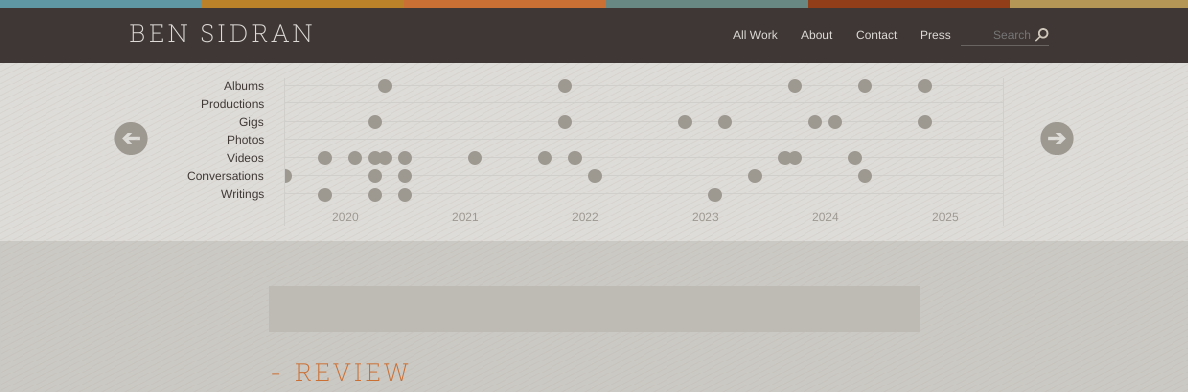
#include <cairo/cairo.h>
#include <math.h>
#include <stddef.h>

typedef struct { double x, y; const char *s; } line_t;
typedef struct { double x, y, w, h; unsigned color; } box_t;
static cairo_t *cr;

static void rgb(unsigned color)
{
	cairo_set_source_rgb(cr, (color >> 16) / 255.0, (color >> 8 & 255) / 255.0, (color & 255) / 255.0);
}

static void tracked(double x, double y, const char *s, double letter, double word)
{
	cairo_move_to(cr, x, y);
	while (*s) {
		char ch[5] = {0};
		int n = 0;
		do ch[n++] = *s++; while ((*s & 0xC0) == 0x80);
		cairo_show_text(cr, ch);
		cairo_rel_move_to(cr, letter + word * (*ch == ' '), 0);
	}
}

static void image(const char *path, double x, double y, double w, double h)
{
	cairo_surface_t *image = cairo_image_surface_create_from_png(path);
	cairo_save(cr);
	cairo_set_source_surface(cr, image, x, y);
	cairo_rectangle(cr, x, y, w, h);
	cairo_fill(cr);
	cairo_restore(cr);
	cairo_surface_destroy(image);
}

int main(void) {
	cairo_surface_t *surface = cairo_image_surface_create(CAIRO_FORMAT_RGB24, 1188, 392);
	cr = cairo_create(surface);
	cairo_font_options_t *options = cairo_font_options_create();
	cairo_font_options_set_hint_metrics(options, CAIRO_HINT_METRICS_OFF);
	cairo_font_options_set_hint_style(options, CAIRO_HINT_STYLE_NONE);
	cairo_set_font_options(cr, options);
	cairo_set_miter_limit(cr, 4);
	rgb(0xffffff);
	cairo_paint(cr);
	image("img/1.png", 0, 63, 1188, 178);
	{
		static const box_t items[] = {
			{1010, 0, 178, 8, 0xb49757},
			{0, 0, 202, 8, 0x5f97a5},
			{202, 0, 202, 8, 0xbc822a},
			{404, 0, 202, 8, 0xca7035},
			{606, 0, 202, 8, 0x688983},
			{808, 0, 202, 8, 0x923e19},
			{0, 8, 1188, 55, 0x3f3735},
			{961, 45, 88, 1, 0x696362},
		};
		for (size_t i = 0; i < sizeof items / sizeof *items; i++) {
			rgb(items[i].color);
			cairo_rectangle(cr, items[i].x, items[i].y, items[i].w, items[i].h);
			cairo_fill(cr);
		}
	}
	image("img/2.png", 1035, 28, 14, 14);
	image("img/3.png", 114, 122, 34, 33);
	image("img/4.png", 1040, 122, 34, 33);
	{
		static const box_t items[] = {
			{1003, 78, 1, 148, 0xd1cfcc},
			{284, 78, 1, 148, 0xd1cfcc},
			{285, 85, 718, 1, 0xd1cfcc},
			{285, 102, 718, 1, 0xd1cfcc},
			{285, 121, 718, 1, 0xd1cfcc},
			{285, 139, 718, 1, 0xd1cfcc},
			{285, 157, 718, 1, 0xd1cfcc},
			{285, 175, 718, 1, 0xd1cfcc},
			{285, 193, 718, 1, 0xd1cfcc},
		};
		for (size_t i = 0; i < sizeof items / sizeof *items; i++) {
			rgb(items[i].color);
			cairo_rectangle(cr, items[i].x, items[i].y, items[i].w, items[i].h);
			cairo_fill(cr);
		}
	}
	rgb(0x9d9991);
	cairo_arc(cr, 385, 86, 7, 0, 2 * M_PI);
	cairo_fill(cr);
	cairo_arc(cr, 565, 86, 7, 0, 2 * M_PI);
	cairo_fill(cr);
	cairo_arc(cr, 795, 86, 7, 0, 2 * M_PI);
	cairo_fill(cr);
	cairo_arc(cr, 865, 86, 7, 0, 2 * M_PI);
	cairo_fill(cr);
	cairo_arc(cr, 925, 86, 7, 0, 2 * M_PI);
	cairo_fill(cr);
	cairo_arc(cr, 375, 122, 7, 0, 2 * M_PI);
	cairo_fill(cr);
	cairo_arc(cr, 565, 122, 7, 0, 2 * M_PI);
	cairo_fill(cr);
	cairo_arc(cr, 685, 122, 7, 0, 2 * M_PI);
	cairo_fill(cr);
	cairo_arc(cr, 725, 122, 7, 0, 2 * M_PI);
	cairo_fill(cr);
	cairo_arc(cr, 815, 122, 7, 0, 2 * M_PI);
	cairo_fill(cr);
	cairo_arc(cr, 835, 122, 7, 0, 2 * M_PI);
	cairo_fill(cr);
	cairo_arc(cr, 925, 122, 7, 0, 2 * M_PI);
	cairo_fill(cr);
	cairo_arc(cr, 325, 158, 7, 0, 2 * M_PI);
	cairo_fill(cr);
	cairo_arc(cr, 355, 158, 7, 0, 2 * M_PI);
	cairo_fill(cr);
	cairo_arc(cr, 375, 158, 7, 0, 2 * M_PI);
	cairo_fill(cr);
	cairo_arc(cr, 385, 158, 7, 0, 2 * M_PI);
	cairo_fill(cr);
	cairo_arc(cr, 405, 158, 7, 0, 2 * M_PI);
	cairo_fill(cr);
	cairo_arc(cr, 475, 158, 7, 0, 2 * M_PI);
	cairo_fill(cr);
	cairo_arc(cr, 545, 158, 7, 0, 2 * M_PI);
	cairo_fill(cr);
	cairo_arc(cr, 575, 158, 7, 0, 2 * M_PI);
	cairo_fill(cr);
	cairo_arc(cr, 785, 158, 7, 0, 2 * M_PI);
	cairo_fill(cr);
	cairo_arc(cr, 795, 158, 7, 0, 2 * M_PI);
	cairo_fill(cr);
	cairo_arc(cr, 855, 158, 7, 0, 2 * M_PI);
	cairo_fill(cr);
	cairo_new_path(cr);
	cairo_move_to(cr, 285, 169);
	cairo_curve_to(cr, 289, 169, 292, 172, 292, 176);
	cairo_curve_to(cr, 292, 180, 289, 183, 285, 183);
	cairo_close_path(cr);
	cairo_fill(cr);
	cairo_arc(cr, 375, 176, 7, 0, 2 * M_PI);
	cairo_fill(cr);
	cairo_arc(cr, 405, 176, 7, 0, 2 * M_PI);
	cairo_fill(cr);
	cairo_arc(cr, 595, 176, 7, 0, 2 * M_PI);
	cairo_fill(cr);
	cairo_arc(cr, 755, 176, 7, 0, 2 * M_PI);
	cairo_fill(cr);
	cairo_arc(cr, 865, 176, 7, 0, 2 * M_PI);
	cairo_fill(cr);
	cairo_arc(cr, 325, 195, 7, 0, 2 * M_PI);
	cairo_fill(cr);
	cairo_arc(cr, 375, 195, 7, 0, 2 * M_PI);
	cairo_fill(cr);
	cairo_arc(cr, 405, 195, 7, 0, 2 * M_PI);
	cairo_fill(cr);
	cairo_arc(cr, 715, 195, 7, 0, 2 * M_PI);
	cairo_fill(cr);
	rgb(0xcac8c3);
	cairo_rectangle(cr, 0, 241, 1, 151);
	cairo_fill(cr);
	image("img/5.png", 1, 241, 1187, 151);
	rgb(0xbebbb5);
	cairo_rectangle(cr, 269, 286, 651, 46);
	cairo_fill(cr);
	cairo_select_font_face(cr, "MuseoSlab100", CAIRO_FONT_SLANT_NORMAL, CAIRO_FONT_WEIGHT_NORMAL);
	cairo_set_font_size(cr, 25.25);
	rgb(0xdddad7);
	tracked(129, 42, "BEN SIDRAN", 3, 0);
	cairo_select_font_face(cr, "Liberation Sans", CAIRO_FONT_SLANT_NORMAL, CAIRO_FONT_WEIGHT_NORMAL);
	cairo_set_font_size(cr, 12);
	{
		static const line_t items[] = {
			{733, 39, "All Work"},
			{801, 39, "About"},
			{856, 39, "Contact"},
			{920, 39, "Press"},
		};
		for (size_t i = 0; i < sizeof items / sizeof *items; i++) {
			cairo_move_to(cr, items[i].x, items[i].y);
			cairo_show_text(cr, items[i].s);
		}
	}
	rgb(0x757575);
	cairo_move_to(cr, 993, 39);
	cairo_show_text(cr, "Search");
	rgb(0x3f3835);
	{
		static const line_t items[] = {
			{224, 90, "Albums"},
			{201, 108, "Productions"},
			{239, 126, "Gigs"},
			{227, 144, "Photos"},
			{227, 162, "Videos"},
			{187, 180, "Conversations"},
			{221, 198, "Writings"},
		};
		for (size_t i = 0; i < sizeof items / sizeof *items; i++) {
			cairo_move_to(cr, items[i].x, items[i].y);
			cairo_show_text(cr, items[i].s);
		}
	}
	rgb(0x9d9991);
	{
		static const line_t items[] = {
			{332, 221, "2020"},
			{452, 221, "2021"},
			{572, 221, "2022"},
			{692, 221, "2023"},
			{812, 221, "2024"},
			{932, 221, "2025"},
		};
		for (size_t i = 0; i < sizeof items / sizeof *items; i++) {
			cairo_move_to(cr, items[i].x, items[i].y);
			cairo_show_text(cr, items[i].s);
		}
	}
	cairo_select_font_face(cr, "MuseoSlab100", CAIRO_FONT_SLANT_NORMAL, CAIRO_FONT_WEIGHT_NORMAL);
	cairo_set_font_size(cr, 25.25);
	rgb(0xca7035);
	tracked(269, 381, "- REVIEW", 3, 0);
	cairo_surface_write_to_png(surface, "page.png");
	cairo_font_options_destroy(options);
	cairo_destroy(cr);
	cairo_surface_destroy(surface);
	return 0;
}
